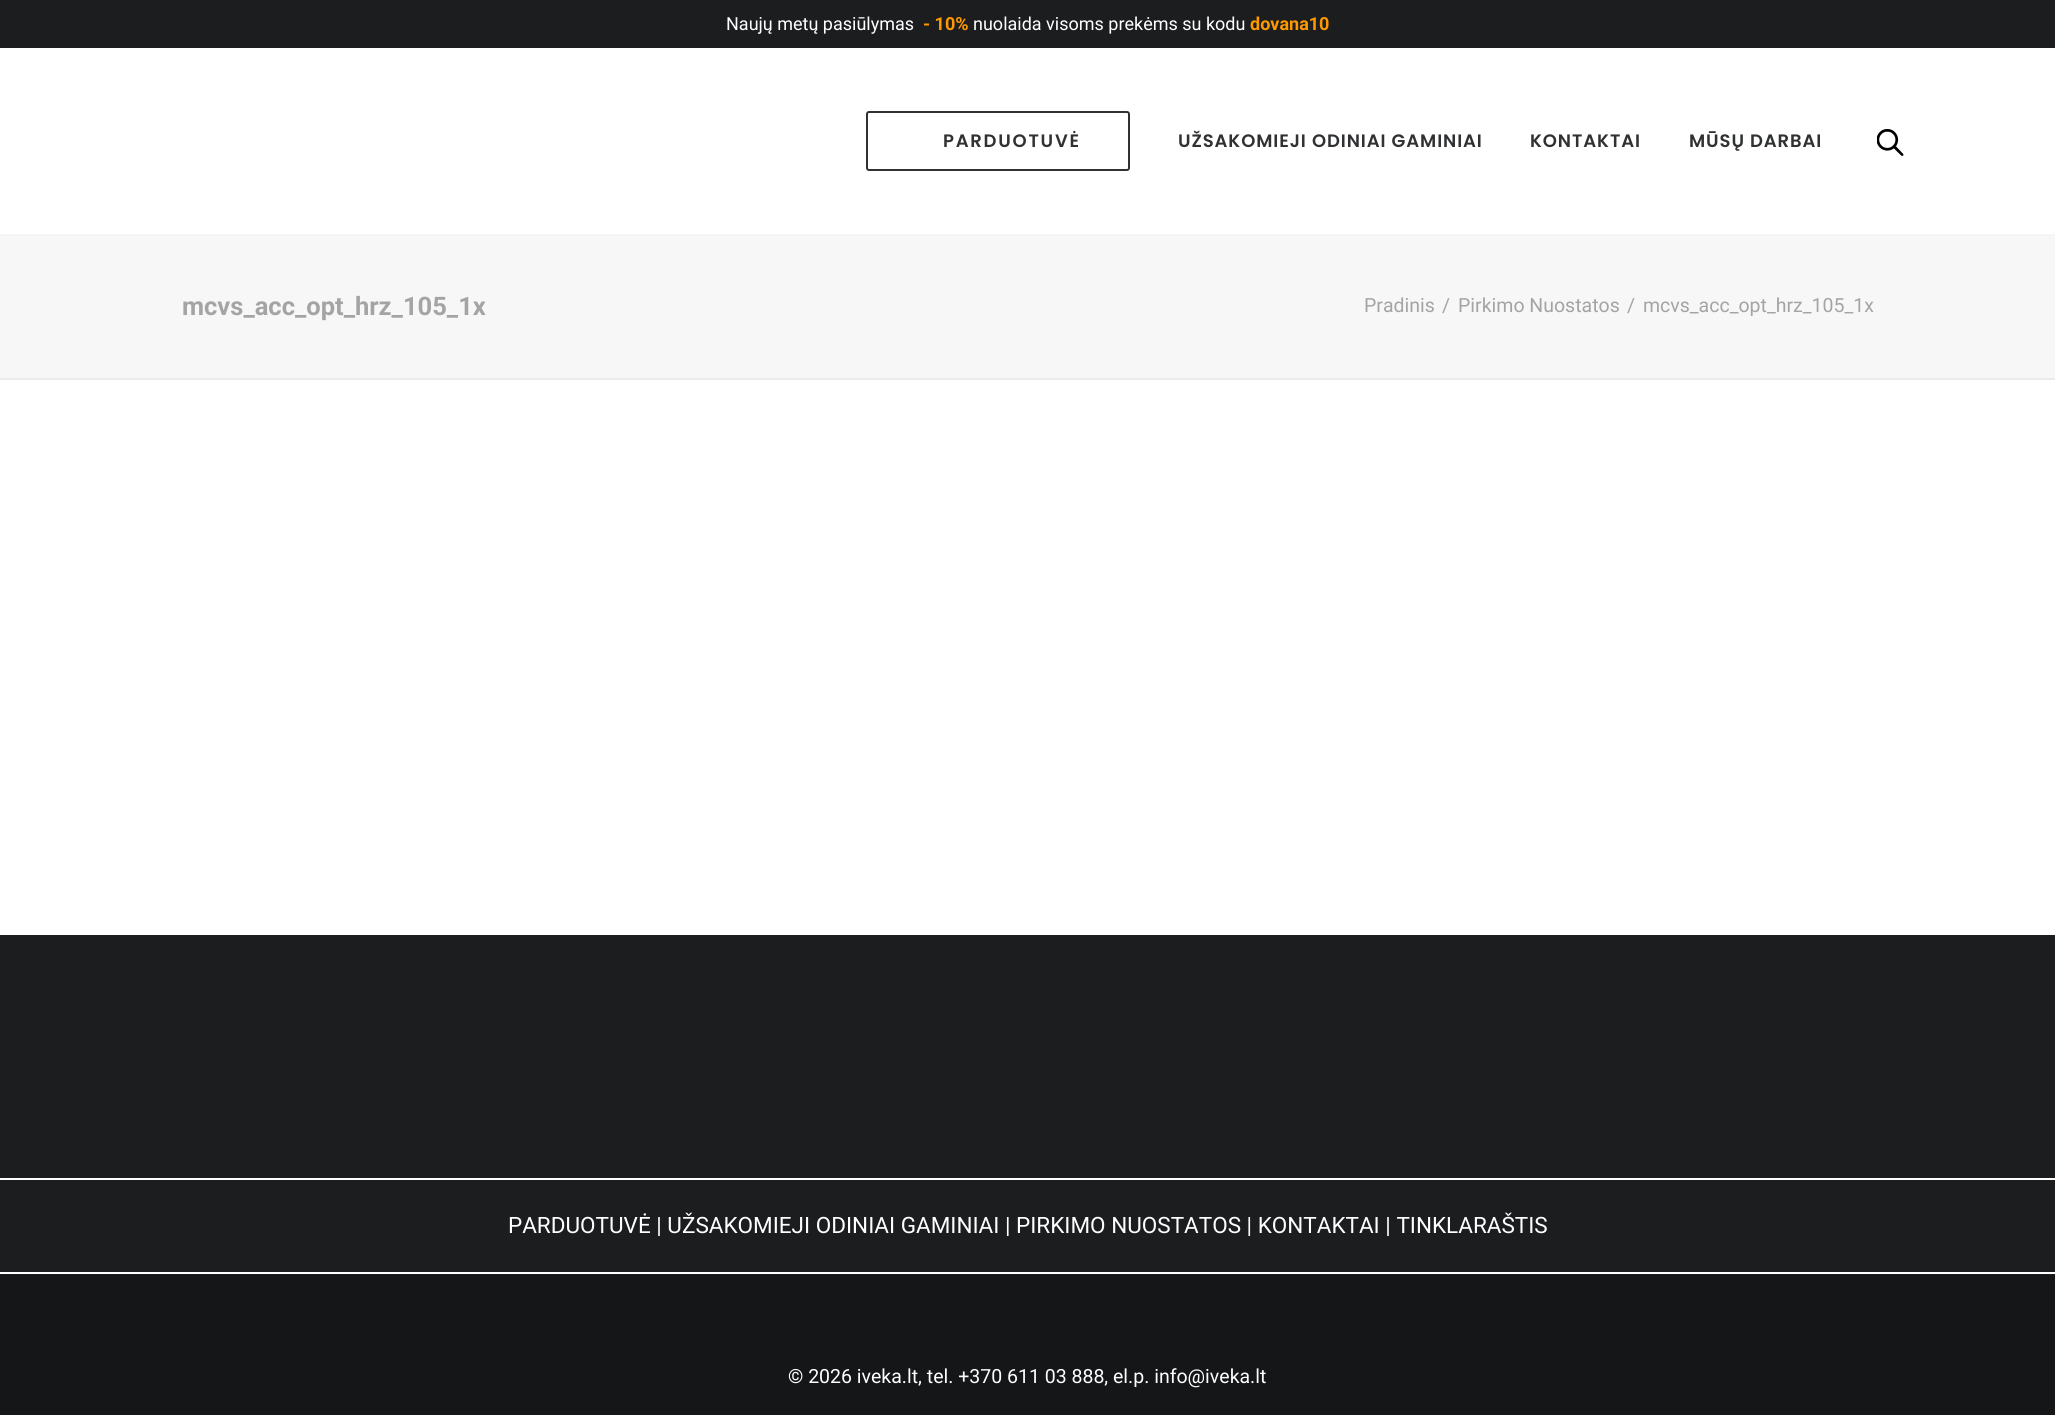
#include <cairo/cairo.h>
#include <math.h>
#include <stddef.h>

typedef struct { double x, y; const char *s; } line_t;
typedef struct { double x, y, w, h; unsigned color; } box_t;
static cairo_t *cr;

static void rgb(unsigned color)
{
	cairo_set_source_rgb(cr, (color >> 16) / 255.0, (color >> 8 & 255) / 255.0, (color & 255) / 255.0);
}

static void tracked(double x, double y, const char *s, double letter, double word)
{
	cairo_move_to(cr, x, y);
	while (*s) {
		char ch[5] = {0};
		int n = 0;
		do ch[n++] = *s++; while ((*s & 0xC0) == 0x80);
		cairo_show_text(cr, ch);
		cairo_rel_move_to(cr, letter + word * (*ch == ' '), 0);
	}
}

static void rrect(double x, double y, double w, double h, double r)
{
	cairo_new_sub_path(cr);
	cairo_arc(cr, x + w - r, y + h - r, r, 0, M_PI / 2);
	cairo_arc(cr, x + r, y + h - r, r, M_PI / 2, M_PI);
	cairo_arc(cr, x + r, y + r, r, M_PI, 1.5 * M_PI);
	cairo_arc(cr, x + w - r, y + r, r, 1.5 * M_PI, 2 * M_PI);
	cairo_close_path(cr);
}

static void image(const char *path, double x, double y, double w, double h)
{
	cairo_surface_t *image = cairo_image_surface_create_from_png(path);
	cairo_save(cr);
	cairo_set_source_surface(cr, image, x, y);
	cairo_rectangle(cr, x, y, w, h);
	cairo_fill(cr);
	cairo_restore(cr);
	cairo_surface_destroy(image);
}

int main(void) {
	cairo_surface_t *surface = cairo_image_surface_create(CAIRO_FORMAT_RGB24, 2055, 1415);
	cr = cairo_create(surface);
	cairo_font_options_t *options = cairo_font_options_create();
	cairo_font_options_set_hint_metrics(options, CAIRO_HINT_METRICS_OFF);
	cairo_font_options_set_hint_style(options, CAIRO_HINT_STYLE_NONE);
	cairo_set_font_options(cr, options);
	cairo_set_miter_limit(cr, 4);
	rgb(0x141618);
	cairo_paint(cr);
	{
		static const box_t items[] = {
			{0, 0, 2055, 48, 0x1b1d1f},
			{0, 48, 2055, 186, 0xffffff},
			{0, 234, 2055, 2, 0xf5f5f5},
		};
		for (size_t i = 0; i < sizeof items / sizeof *items; i++) {
			rgb(items[i].color);
			cairo_rectangle(cr, items[i].x, items[i].y, items[i].w, items[i].h);
			cairo_fill(cr);
		}
	}
	rrect(867, 112, 262, 58, 2);
	rgb(0x303133);
	cairo_stroke(cr);
	image("img/1.png", 1877, 129, 27, 27);
	{
		static const box_t items[] = {
			{0, 236, 2055, 142, 0xf7f7f7},
			{0, 378, 2055, 2, 0xeaeaea},
			{0, 380, 2055, 555, 0xffffff},
			{0, 935, 2055, 340, 0x1b1d1f},
			{0, 1178, 2055, 2, 0xffffff},
			{0, 1272, 2055, 2, 0xffffff},
		};
		for (size_t i = 0; i < sizeof items / sizeof *items; i++) {
			rgb(items[i].color);
			cairo_rectangle(cr, items[i].x, items[i].y, items[i].w, items[i].h);
			cairo_fill(cr);
		}
	}
	cairo_select_font_face(cr, "Roboto", CAIRO_FONT_SLANT_NORMAL, CAIRO_FONT_WEIGHT_NORMAL);
	cairo_set_font_size(cr, 18);
	cairo_move_to(cr, 726, 30);
	cairo_show_text(cr, "Naujų metų pasiūlymas");
	cairo_select_font_face(cr, "Roboto", CAIRO_FONT_SLANT_NORMAL, CAIRO_FONT_WEIGHT_BOLD);
	rgb(0xff9900);
	cairo_move_to(cr, 923, 30);
	cairo_show_text(cr, "- 10%");
	cairo_select_font_face(cr, "Roboto", CAIRO_FONT_SLANT_NORMAL, CAIRO_FONT_WEIGHT_NORMAL);
	rgb(0xffffff);
	cairo_move_to(cr, 973, 30);
	cairo_show_text(cr, "nuolaida visoms prekėms su kodu");
	cairo_select_font_face(cr, "Roboto", CAIRO_FONT_SLANT_NORMAL, CAIRO_FONT_WEIGHT_BOLD);
	rgb(0xff9900);
	cairo_move_to(cr, 1250, 30);
	cairo_show_text(cr, "dovana10");
	cairo_select_font_face(cr, "Poppins SemiBold", CAIRO_FONT_SLANT_NORMAL, CAIRO_FONT_WEIGHT_NORMAL);
	rgb(0x303133);
	tracked(943, 147, "PARDUOTUVĖ", 1.75, 0);
	{
		static const line_t items[] = {
			{1178, 147, "UŽSAKOMIEJI ODINIAI GAMINIAI"},
			{1530, 147, "KONTAKTAI"},
			{1689, 147, "MŪSŲ DARBAI"},
		};
		for (size_t i = 0; i < sizeof items / sizeof *items; i++) {
			tracked(items[i].x, items[i].y, items[i].s, 0.9, 0);
		}
	}
	cairo_select_font_face(cr, "Roboto", CAIRO_FONT_SLANT_NORMAL, CAIRO_FONT_WEIGHT_BOLD);
	cairo_set_font_size(cr, 25.5);
	rgb(0xa4a4a4);
	cairo_move_to(cr, 182, 315);
	cairo_show_text(cr, "mcvs_acc_opt_hrz_105_1x");
	cairo_select_font_face(cr, "Roboto", CAIRO_FONT_SLANT_NORMAL, CAIRO_FONT_WEIGHT_NORMAL);
	cairo_set_font_size(cr, 19.5);
	{
		static const line_t items[] = {
			{1364, 312, "Pradinis"},
			{1442, 312, "/"},
			{1458, 312, "Pirkimo Nuostatos"},
			{1627, 312, "/"},
			{1643, 312, "mcvs_acc_opt_hrz_105_1x"},
		};
		for (size_t i = 0; i < sizeof items / sizeof *items; i++) {
			cairo_move_to(cr, items[i].x, items[i].y);
			cairo_show_text(cr, items[i].s);
		}
	}
	cairo_set_font_size(cr, 22.5);
	rgb(0xffffff);
	cairo_move_to(cr, 508, 1233);
	cairo_show_text(cr, "PARDUOTUVĖ | UŽSAKOMIEJI ODINIAI GAMINIAI | PIRKIMO NUOSTATOS | KONTAKTAI | TINKLARAŠTIS");
	cairo_set_font_size(cr, 19.5);
	cairo_move_to(cr, 788, 1383);
	cairo_show_text(cr, "© 2026 iveka.lt, tel. +370 611 03 888, el.p. info@iveka.lt");
	cairo_surface_write_to_png(surface, "page.png");
	cairo_font_options_destroy(options);
	cairo_destroy(cr);
	cairo_surface_destroy(surface);
	return 0;
}
